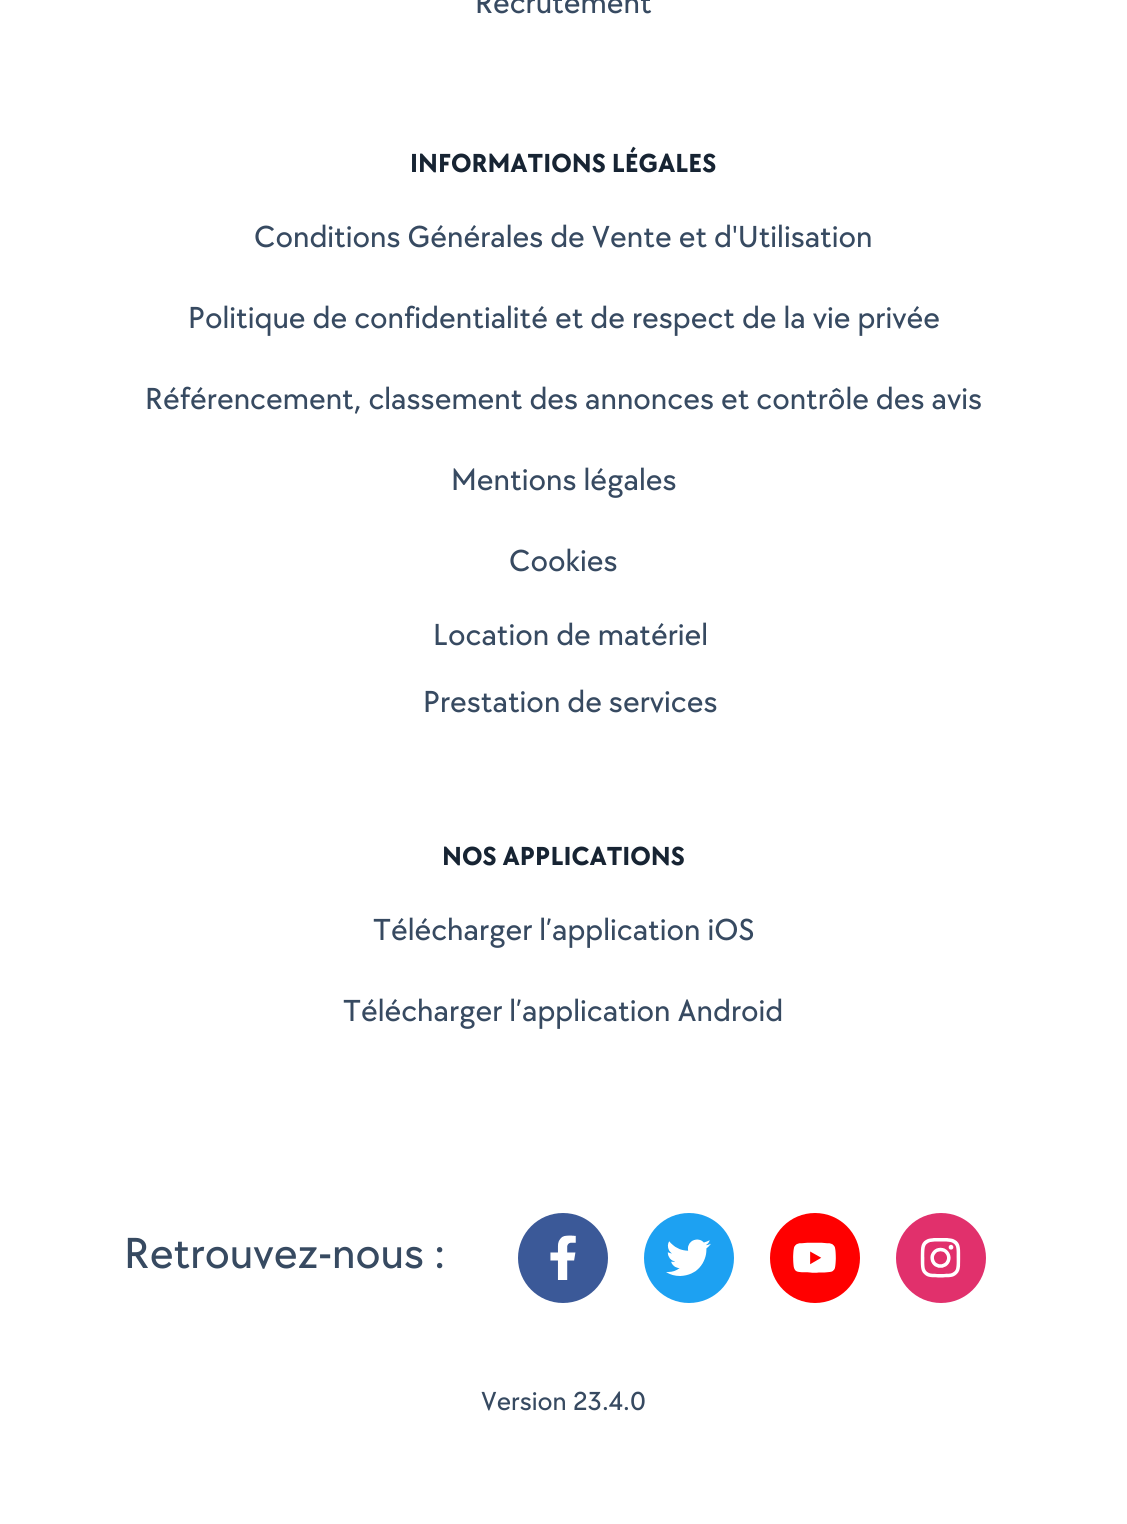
#include <cairo/cairo.h>
#include <math.h>
#include <stddef.h>

typedef struct { double x, y; const char *s; } line_t;
static cairo_t *cr;

static void rgb(unsigned color)
{
	cairo_set_source_rgb(cr, (color >> 16) / 255.0, (color >> 8 & 255) / 255.0, (color & 255) / 255.0);
}

static void image(const char *path, double x, double y, double w, double h)
{
	cairo_surface_t *image = cairo_image_surface_create_from_png(path);
	cairo_save(cr);
	cairo_set_source_surface(cr, image, x, y);
	cairo_rectangle(cr, x, y, w, h);
	cairo_fill(cr);
	cairo_restore(cr);
	cairo_surface_destroy(image);
}

int main(void) {
	cairo_surface_t *surface = cairo_image_surface_create(CAIRO_FORMAT_RGB24, 1127, 1524);
	cr = cairo_create(surface);
	cairo_font_options_t *options = cairo_font_options_create();
	cairo_font_options_set_hint_metrics(options, CAIRO_HINT_METRICS_OFF);
	cairo_font_options_set_hint_style(options, CAIRO_HINT_STYLE_NONE);
	cairo_set_font_options(cr, options);
	cairo_set_miter_limit(cr, 4);
	rgb(0xffffff);
	cairo_paint(cr);
	rgb(0x3b5998);
	cairo_arc(cr, 563, 1258, 45, 0, 2 * M_PI);
	cairo_fill(cr);
	image("img/1.png", 550, 1235, 26, 45);
	rgb(0x1da1f2);
	cairo_arc(cr, 689, 1258, 45, 0, 2 * M_PI);
	cairo_fill(cr);
	image("img/2.png", 666, 1239, 45, 37);
	rgb(0xff0000);
	cairo_arc(cr, 815, 1258, 45, 0, 2 * M_PI);
	cairo_fill(cr);
	image("img/3.png", 793, 1242, 43, 31);
	rgb(0xe1306c);
	cairo_arc(cr, 941, 1258, 45, 0, 2 * M_PI);
	cairo_fill(cr);
	image("img/4.png", 920, 1238, 41, 40);
	cairo_select_font_face(cr, "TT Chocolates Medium", CAIRO_FONT_SLANT_NORMAL, CAIRO_FONT_WEIGHT_NORMAL);
	cairo_set_font_size(cr, 31.5);
	rgb(0x374a61);
	cairo_move_to(cr, 475, 13);
	cairo_show_text(cr, "Recrutement");
	cairo_select_font_face(cr, "TT Chocolates", CAIRO_FONT_SLANT_NORMAL, CAIRO_FONT_WEIGHT_BOLD);
	cairo_set_font_size(cr, 27);
	rgb(0x172433);
	cairo_move_to(cr, 410, 172);
	cairo_show_text(cr, "INFORMATIONS LÉGALES");
	cairo_select_font_face(cr, "TT Chocolates Medium", CAIRO_FONT_SLANT_NORMAL, CAIRO_FONT_WEIGHT_NORMAL);
	cairo_set_font_size(cr, 31.5);
	rgb(0x374a61);
	{
		static const line_t items[] = {
			{254, 247, "Conditions Générales de Vente et d'Utilisation"},
			{188, 328, "Politique de confidentialité et de respect de la vie privée"},
			{145, 409, "Référencement, classement des annonces et contrôle des avis"},
			{451, 490, "Mentions légales"},
			{509, 571, "Cookies"},
			{433, 645, "Location de matériel"},
			{423, 712, "Prestation de services"},
		};
		for (size_t i = 0; i < sizeof items / sizeof *items; i++) {
			cairo_move_to(cr, items[i].x, items[i].y);
			cairo_show_text(cr, items[i].s);
		}
	}
	cairo_select_font_face(cr, "TT Chocolates", CAIRO_FONT_SLANT_NORMAL, CAIRO_FONT_WEIGHT_BOLD);
	cairo_set_font_size(cr, 27);
	rgb(0x172433);
	cairo_move_to(cr, 442, 865);
	cairo_show_text(cr, "NOS APPLICATIONS");
	cairo_select_font_face(cr, "TT Chocolates Medium", CAIRO_FONT_SLANT_NORMAL, CAIRO_FONT_WEIGHT_NORMAL);
	cairo_set_font_size(cr, 31.5);
	rgb(0x374a61);
	cairo_move_to(cr, 373, 940);
	cairo_show_text(cr, "Télécharger l’application iOS");
	cairo_move_to(cr, 343, 1021);
	cairo_show_text(cr, "Télécharger l’application Android");
	cairo_set_font_size(cr, 45);
	cairo_move_to(cr, 124, 1268);
	cairo_show_text(cr, "Retrouvez-nous :");
	cairo_set_font_size(cr, 27);
	cairo_move_to(cr, 481, 1410);
	cairo_show_text(cr, "Version 23.4.0");
	cairo_surface_write_to_png(surface, "page.png");
	cairo_font_options_destroy(options);
	cairo_destroy(cr);
	cairo_surface_destroy(surface);
	return 0;
}
